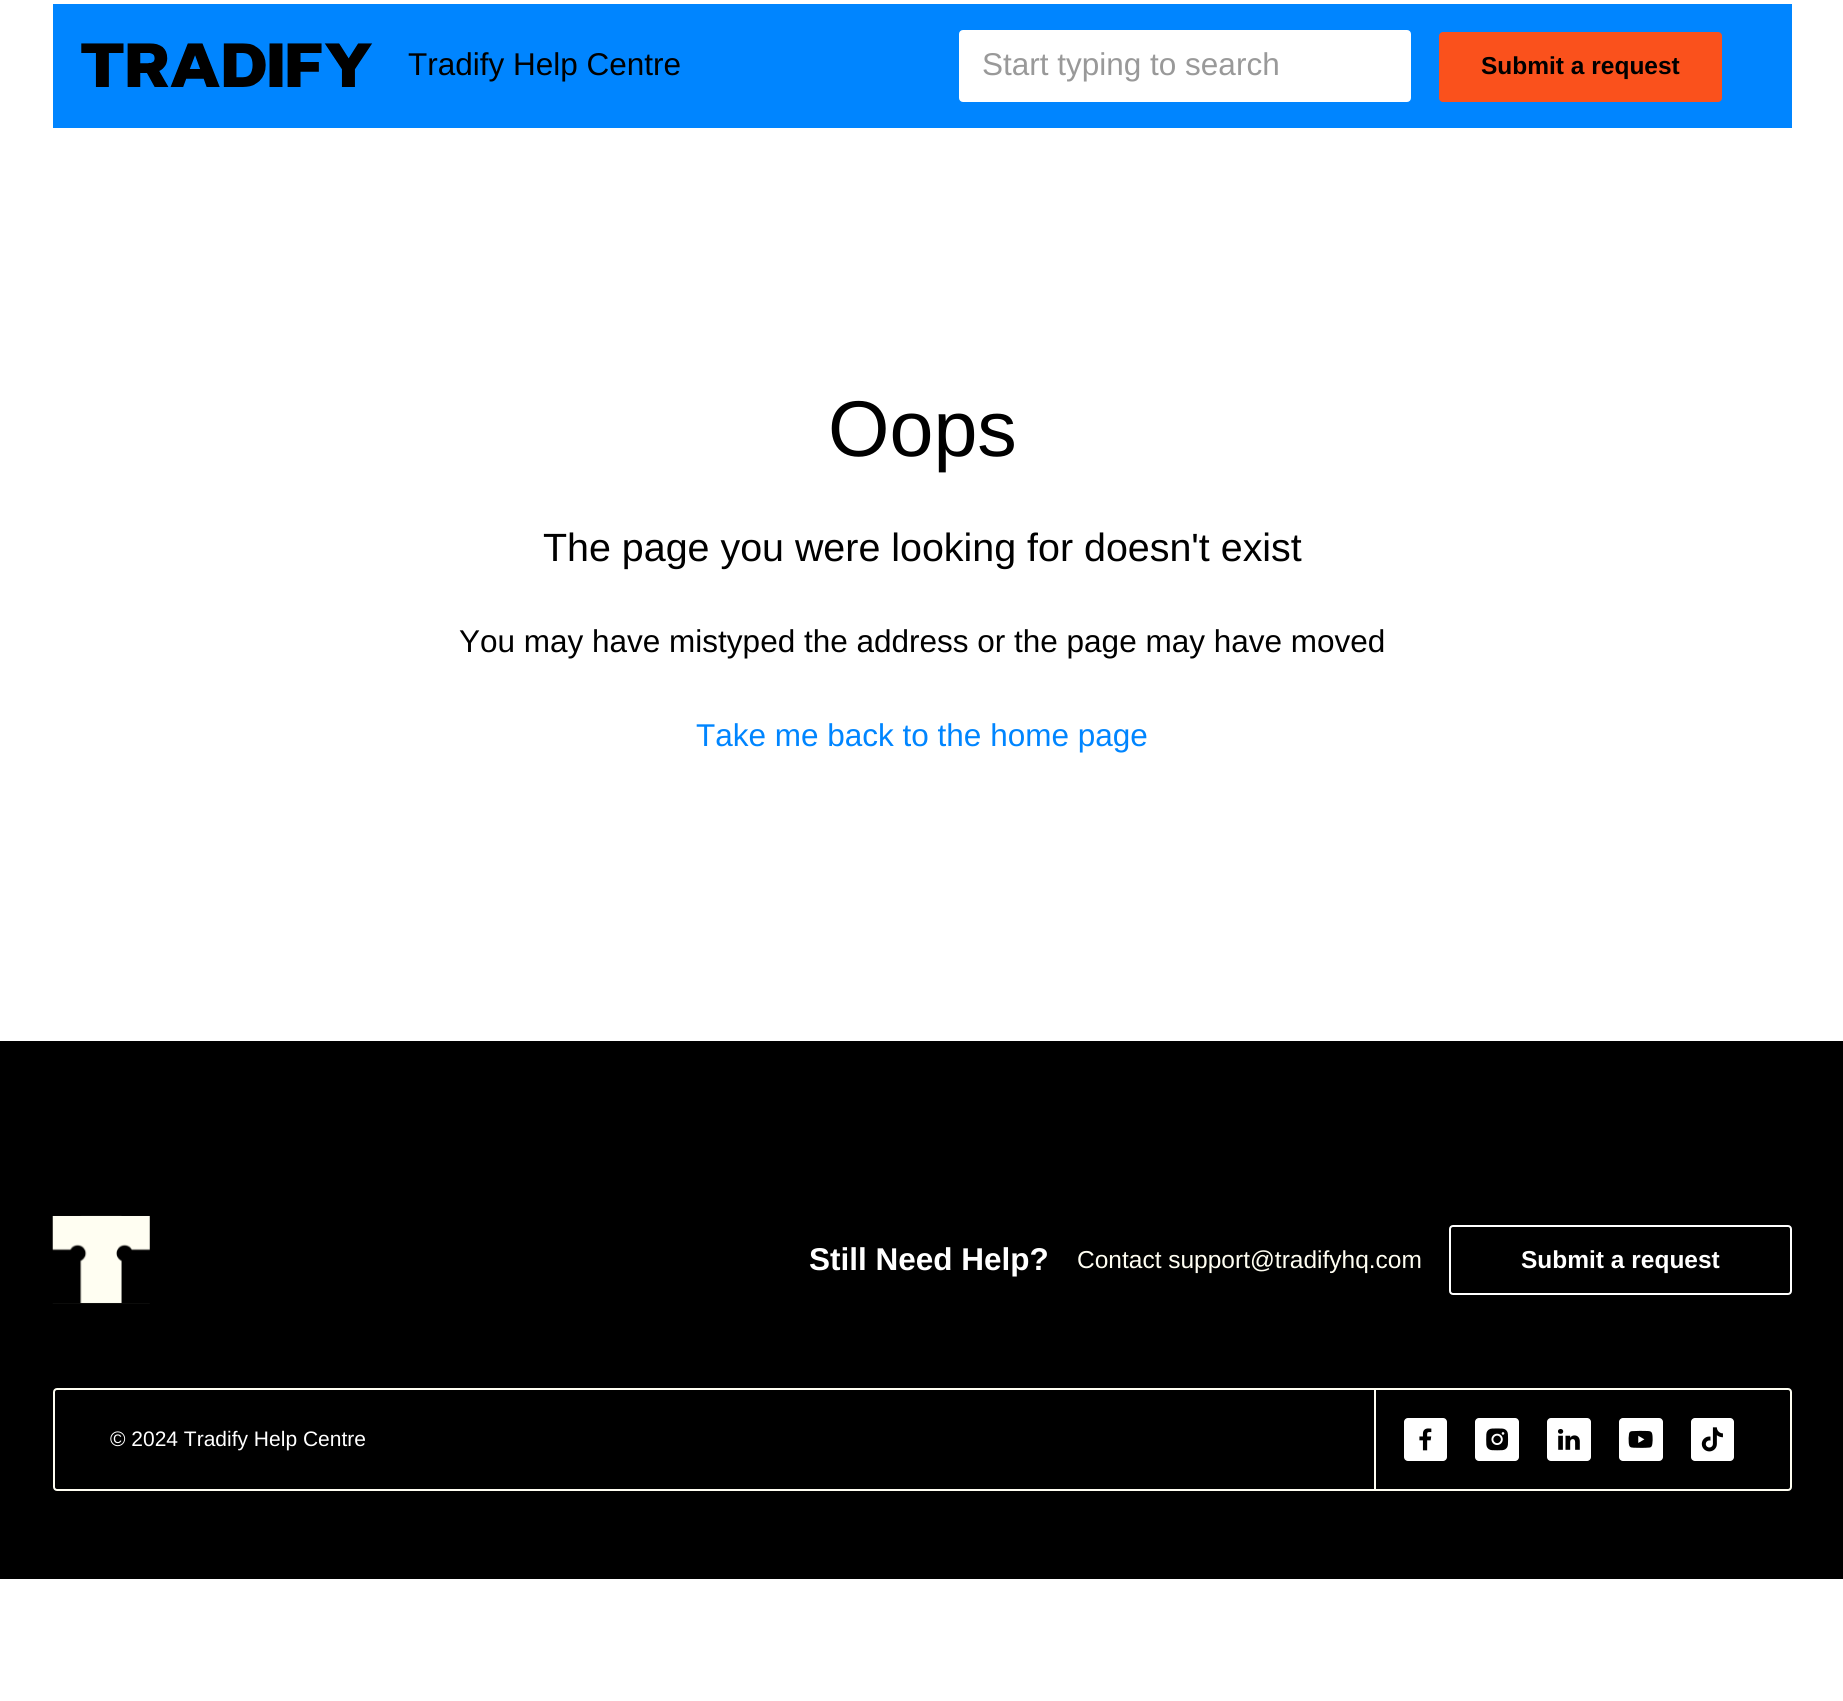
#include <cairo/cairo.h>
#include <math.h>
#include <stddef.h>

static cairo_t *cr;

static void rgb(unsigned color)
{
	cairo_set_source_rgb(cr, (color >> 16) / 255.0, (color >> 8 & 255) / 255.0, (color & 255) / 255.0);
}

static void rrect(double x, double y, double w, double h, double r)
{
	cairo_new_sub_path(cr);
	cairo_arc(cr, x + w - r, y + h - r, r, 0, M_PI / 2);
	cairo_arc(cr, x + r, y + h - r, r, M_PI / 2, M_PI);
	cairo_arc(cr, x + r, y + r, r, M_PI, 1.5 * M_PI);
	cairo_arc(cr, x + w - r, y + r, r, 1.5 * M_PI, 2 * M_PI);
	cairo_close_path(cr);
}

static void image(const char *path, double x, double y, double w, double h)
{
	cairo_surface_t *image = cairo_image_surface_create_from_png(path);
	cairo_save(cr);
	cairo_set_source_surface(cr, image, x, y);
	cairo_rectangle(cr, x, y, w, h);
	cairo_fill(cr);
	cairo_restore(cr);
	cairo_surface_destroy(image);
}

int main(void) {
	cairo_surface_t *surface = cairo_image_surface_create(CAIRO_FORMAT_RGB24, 1843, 1701);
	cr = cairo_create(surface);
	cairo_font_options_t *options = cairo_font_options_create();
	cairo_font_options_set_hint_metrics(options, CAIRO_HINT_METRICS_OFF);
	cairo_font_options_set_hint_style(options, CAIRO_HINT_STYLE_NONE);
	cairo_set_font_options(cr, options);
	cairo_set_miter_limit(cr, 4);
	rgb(0xffffff);
	cairo_paint(cr);
	rgb(0x0085ff);
	cairo_rectangle(cr, 53, 4, 1739, 124);
	cairo_fill(cr);
	image("img/1.png", 81, 43, 292, 44);
	rgb(0xffffff);
	rrect(960, 31, 450, 70, 3);
	cairo_fill_preserve(cr);
	cairo_stroke(cr);
	rgb(0xfa511c);
	rrect(1439, 32, 283, 70, 4);
	cairo_fill(cr);
	rgb(0x000000);
	cairo_rectangle(cr, 0, 1041, 1843, 538);
	cairo_fill(cr);
	image("img/2.png", 52, 1215, 98, 89);
	rrect(1450, 1226, 341, 68, 3);
	rgb(0xffffff);
	cairo_stroke(cr);
	rrect(54, 1389, 1737, 101, 3);
	rgb(0xfffef2);
	cairo_stroke(cr);
	cairo_rectangle(cr, 1374, 1390, 2, 99);
	cairo_fill(cr);
	rgb(0xffffff);
	rrect(1404, 1418, 43, 43, 4);
	cairo_fill(cr);
	image("img/3.png", 1419, 1428, 13, 23);
	rrect(1475, 1418, 44, 43, 4);
	cairo_fill(cr);
	image("img/4.png", 1486, 1428, 23, 23);
	rrect(1547, 1418, 44, 43, 4);
	cairo_fill(cr);
	image("img/5.png", 1558, 1429, 22, 21);
	rrect(1619, 1418, 44, 43, 4);
	cairo_fill(cr);
	image("img/6.png", 1628, 1430, 25, 18);
	rrect(1691, 1418, 43, 43, 4);
	cairo_fill(cr);
	image("img/7.png", 1701, 1427, 22, 25);
	cairo_select_font_face(cr, "Liberation Sans", CAIRO_FONT_SLANT_NORMAL, CAIRO_FONT_WEIGHT_NORMAL);
	cairo_set_font_size(cr, 31.5);
	rgb(0x000000);
	cairo_move_to(cr, 408, 75);
	cairo_show_text(cr, "Tradify Help Centre");
	rgb(0x999999);
	cairo_move_to(cr, 982, 75);
	cairo_show_text(cr, "Start typing to search");
	cairo_select_font_face(cr, "Liberation Sans", CAIRO_FONT_SLANT_NORMAL, CAIRO_FONT_WEIGHT_BOLD);
	cairo_set_font_size(cr, 24.5);
	rgb(0x000000);
	cairo_move_to(cr, 1481, 74);
	cairo_show_text(cr, "Submit a request");
	cairo_select_font_face(cr, "Liberation Sans", CAIRO_FONT_SLANT_NORMAL, CAIRO_FONT_WEIGHT_NORMAL);
	cairo_set_font_size(cr, 79);
	cairo_move_to(cr, 828, 456);
	cairo_show_text(cr, "Oops");
	cairo_set_font_size(cr, 39.4);
	cairo_move_to(cr, 543, 561);
	cairo_show_text(cr, "The page you were looking for doesn't exist");
	cairo_set_font_size(cr, 31.5);
	cairo_move_to(cr, 459, 652);
	cairo_show_text(cr, "You may have mistyped the address or the page may have moved");
	rgb(0x0085ff);
	cairo_move_to(cr, 696, 746);
	cairo_show_text(cr, "Take me back to the home page");
	cairo_select_font_face(cr, "Liberation Sans", CAIRO_FONT_SLANT_NORMAL, CAIRO_FONT_WEIGHT_BOLD);
	rgb(0xffffff);
	cairo_move_to(cr, 809, 1270);
	cairo_show_text(cr, "Still Need Help?");
	cairo_select_font_face(cr, "Liberation Sans", CAIRO_FONT_SLANT_NORMAL, CAIRO_FONT_WEIGHT_NORMAL);
	cairo_set_font_size(cr, 24.5);
	rgb(0xfffef2);
	cairo_move_to(cr, 1077, 1268);
	cairo_show_text(cr, "Contact support@tradifyhq.com");
	cairo_select_font_face(cr, "Liberation Sans", CAIRO_FONT_SLANT_NORMAL, CAIRO_FONT_WEIGHT_BOLD);
	rgb(0xffffff);
	cairo_move_to(cr, 1521, 1268);
	cairo_show_text(cr, "Submit a request");
	cairo_select_font_face(cr, "Liberation Sans", CAIRO_FONT_SLANT_NORMAL, CAIRO_FONT_WEIGHT_NORMAL);
	cairo_set_font_size(cr, 21);
	cairo_move_to(cr, 110, 1446);
	cairo_show_text(cr, "© 2024 Tradify Help Centre");
	cairo_surface_write_to_png(surface, "page.png");
	cairo_font_options_destroy(options);
	cairo_destroy(cr);
	cairo_surface_destroy(surface);
	return 0;
}
